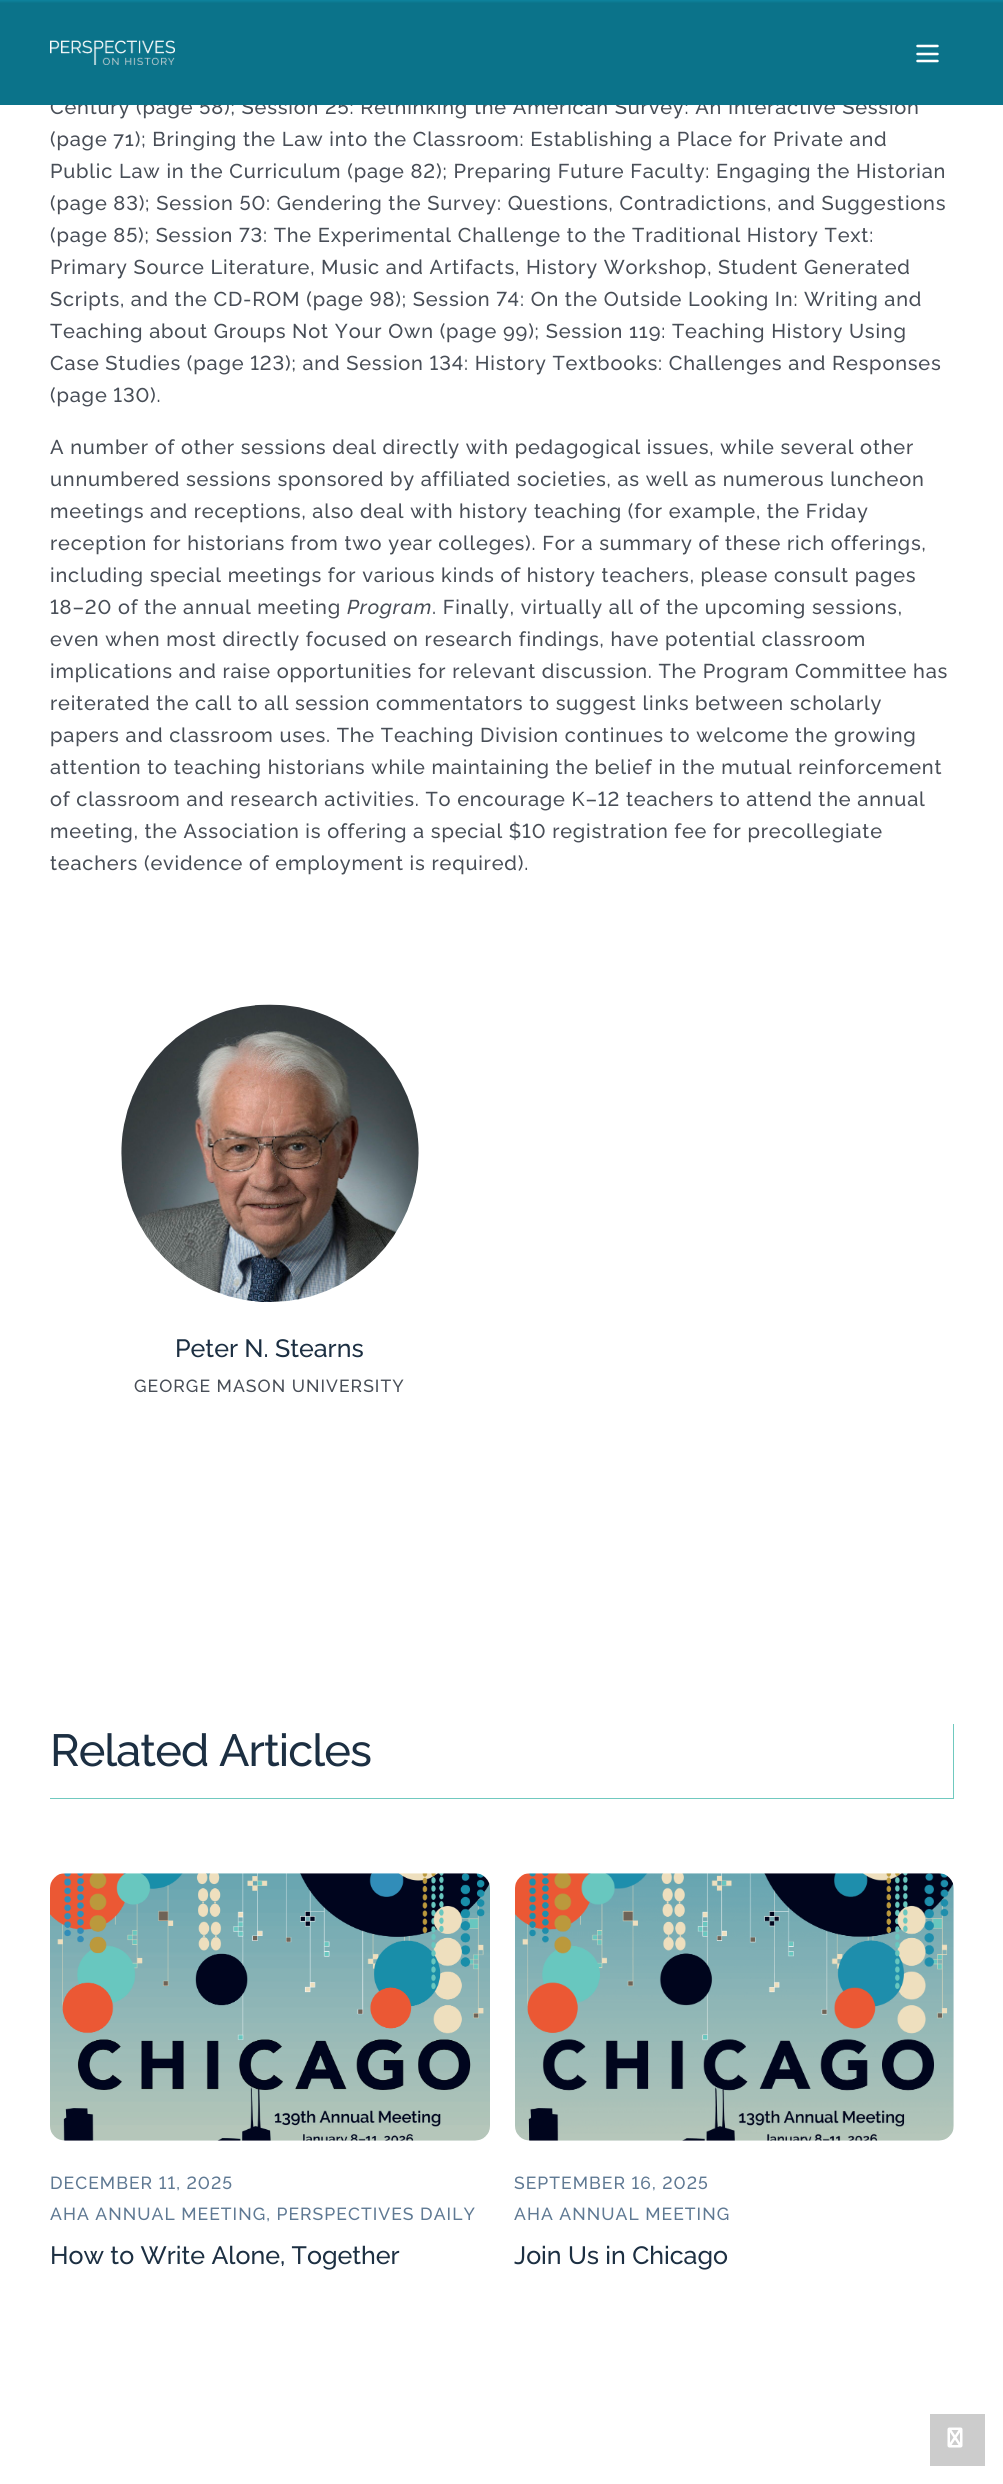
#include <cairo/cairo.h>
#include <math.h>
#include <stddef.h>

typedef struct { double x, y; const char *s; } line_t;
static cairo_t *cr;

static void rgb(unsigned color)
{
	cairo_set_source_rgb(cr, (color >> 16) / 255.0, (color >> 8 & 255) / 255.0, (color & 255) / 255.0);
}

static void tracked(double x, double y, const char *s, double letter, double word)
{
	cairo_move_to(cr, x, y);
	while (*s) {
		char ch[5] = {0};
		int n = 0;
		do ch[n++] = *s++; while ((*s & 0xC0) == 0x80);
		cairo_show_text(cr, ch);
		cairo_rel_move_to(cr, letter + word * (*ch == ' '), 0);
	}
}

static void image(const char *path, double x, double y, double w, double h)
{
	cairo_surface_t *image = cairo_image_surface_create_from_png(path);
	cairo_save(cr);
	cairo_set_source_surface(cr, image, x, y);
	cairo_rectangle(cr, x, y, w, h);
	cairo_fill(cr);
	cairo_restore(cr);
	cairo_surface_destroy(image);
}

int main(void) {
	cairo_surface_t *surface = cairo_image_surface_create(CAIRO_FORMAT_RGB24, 1003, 2484);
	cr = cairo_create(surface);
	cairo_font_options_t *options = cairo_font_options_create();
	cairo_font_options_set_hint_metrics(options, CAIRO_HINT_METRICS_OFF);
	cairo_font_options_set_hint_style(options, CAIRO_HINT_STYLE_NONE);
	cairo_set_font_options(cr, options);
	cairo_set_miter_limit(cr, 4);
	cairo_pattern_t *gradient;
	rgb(0xffffff);
	cairo_paint(cr);
	image("img/2.png", 121, 1004, 298, 298);
	rgb(0x70c9bf);
	cairo_rectangle(cr, 953, 1724, 1, 75);
	cairo_fill(cr);
	cairo_rectangle(cr, 50, 1798, 904, 1);
	cairo_fill(cr);
	image("img/3.png", 50, 1873, 440, 268);
	image("img/4.png", 515, 1873, 439, 268);
	rgb(0xcccccc);
	cairo_rectangle(cr, 930, 2414, 55, 52);
	cairo_fill(cr);
	image("img/5.png", 947, 2427, 16, 21);
	cairo_select_font_face(cr, "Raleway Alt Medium", CAIRO_FONT_SLANT_NORMAL, CAIRO_FONT_WEIGHT_NORMAL);
	cairo_set_font_size(cr, 20);
	rgb(0x484e57);
	tracked(50, 114, "Century (page 58); Session 25: Rethinking the American Survey: An Interactive Session", 0.8, 0);
	gradient = cairo_pattern_create_linear(502, 0, 502, 105);
	cairo_pattern_add_color_stop_rgba(gradient, 0, 0.051, 0.518, 0.62, 1);
	cairo_pattern_add_color_stop_rgba(gradient, 0.03, 0.043, 0.451, 0.541, 1);
	cairo_set_source(cr, gradient);
	cairo_pattern_destroy(gradient);
	cairo_rectangle(cr, 0, 0, 1003, 105);
	cairo_fill(cr);
	cairo_new_path(cr);
	cairo_move_to(cr, 917.5, 46);
	cairo_line_to(cr, 937.5, 46);
	cairo_move_to(cr, 917.5, 54);
	cairo_line_to(cr, 937.5, 54);
	cairo_move_to(cr, 917.5, 61);
	cairo_line_to(cr, 937.5, 61);
	rgb(0xffffff);
	cairo_set_line_width(cr, 2.5);
	cairo_set_line_cap(cr, CAIRO_LINE_CAP_ROUND);
	cairo_set_line_join(cr, CAIRO_LINE_JOIN_ROUND);
	cairo_stroke(cr);
	image("img/1.png", 50, 40, 125, 25);
	cairo_select_font_face(cr, "Raleway Medium", CAIRO_FONT_SLANT_NORMAL, CAIRO_FONT_WEIGHT_NORMAL);
	rgb(0x484e57);
	tracked(50, 146, "(page 71); Bringing the Law into the Classroom: Establishing a Place for Private and", 0.8, 0);
	cairo_select_font_face(cr, "Raleway Alt Medium", CAIRO_FONT_SLANT_NORMAL, CAIRO_FONT_WEIGHT_NORMAL);
	{
		static const line_t items[] = {
			{50, 178, "Public Law in the Curriculum (page 82); Preparing Future Faculty: Engaging the Historian"},
			{50, 210, "(page 83); Session 50: Gendering the Survey: Questions, Contradictions, and Suggestions"},
			{50, 242, "(page 85); Session 73: The Experimental Challenge to the Traditional History Text:"},
		};
		for (size_t i = 0; i < sizeof items / sizeof *items; i++) {
			tracked(items[i].x, items[i].y, items[i].s, 0.8, 0);
		}
	}
	cairo_select_font_face(cr, "Raleway Medium", CAIRO_FONT_SLANT_NORMAL, CAIRO_FONT_WEIGHT_NORMAL);
	tracked(50, 274, "Primary Source Literature, Music and Artifacts, History Workshop, Student Generated", 0.8, 0);
	cairo_select_font_face(cr, "Raleway Alt Medium", CAIRO_FONT_SLANT_NORMAL, CAIRO_FONT_WEIGHT_NORMAL);
	tracked(50, 306, "Scripts, and the CD-ROM (page 98); Session 74: On the Outside Looking In: Writing and", 0.8, 0);
	cairo_select_font_face(cr, "Raleway Medium", CAIRO_FONT_SLANT_NORMAL, CAIRO_FONT_WEIGHT_NORMAL);
	tracked(50, 338, "Teaching about Groups Not Your Own (page 99); Session 119: Teaching History Using", 0.8, 0);
	cairo_select_font_face(cr, "Raleway Alt Medium", CAIRO_FONT_SLANT_NORMAL, CAIRO_FONT_WEIGHT_NORMAL);
	tracked(50, 370, "Case Studies (page 123); and Session 134: History Textbooks: Challenges and Responses", 0.8, 0);
	tracked(50, 402, "(page 130).", 0.8, 0);
	cairo_select_font_face(cr, "Raleway Medium", CAIRO_FONT_SLANT_NORMAL, CAIRO_FONT_WEIGHT_NORMAL);
	{
		static const line_t items[] = {
			{50, 454, "A number of other sessions deal directly with pedagogical issues, while several other"},
			{50, 486, "unnumbered sessions sponsored by affiliated societies, as well as numerous luncheon"},
			{50, 518, "meetings and receptions, also deal with history teaching (for example, the Friday"},
			{50, 550, "reception for historians from two year colleges). For a summary of these rich offerings,"},
			{50, 582, "including special meetings for various kinds of history teachers, please consult pages"},
		};
		for (size_t i = 0; i < sizeof items / sizeof *items; i++) {
			tracked(items[i].x, items[i].y, items[i].s, 0.8, 0);
		}
	}
	cairo_select_font_face(cr, "Raleway Alt Medium", CAIRO_FONT_SLANT_NORMAL, CAIRO_FONT_WEIGHT_NORMAL);
	tracked(50, 614, "18–20 of the annual meeting", 0.8, 0);
	cairo_select_font_face(cr, "Raleway Medium", CAIRO_FONT_SLANT_ITALIC, CAIRO_FONT_WEIGHT_NORMAL);
	tracked(347, 614, "Program", 0.8, 0);
	cairo_select_font_face(cr, "Raleway Medium", CAIRO_FONT_SLANT_NORMAL, CAIRO_FONT_WEIGHT_NORMAL);
	{
		static const line_t items[] = {
			{432, 614, ". Finally, virtually all of the upcoming sessions,"},
			{50, 646, "even when most directly focused on research findings, have potential classroom"},
			{50, 678, "implications and raise opportunities for relevant discussion. The Program Committee has"},
			{50, 710, "reiterated the call to all session commentators to suggest links between scholarly"},
			{50, 742, "papers and classroom uses. The Teaching Division continues to welcome the growing"},
			{50, 774, "attention to teaching historians while maintaining the belief in the mutual reinforcement"},
		};
		for (size_t i = 0; i < sizeof items / sizeof *items; i++) {
			tracked(items[i].x, items[i].y, items[i].s, 0.8, 0);
		}
	}
	cairo_select_font_face(cr, "Raleway Alt Medium", CAIRO_FONT_SLANT_NORMAL, CAIRO_FONT_WEIGHT_NORMAL);
	tracked(50, 806, "of classroom and research activities. To encourage K–12 teachers to attend the annual", 0.8, 0);
	tracked(50, 838, "meeting, the Association is offering a special $10 registration fee for precollegiate", 0.8, 0);
	cairo_select_font_face(cr, "Raleway Medium", CAIRO_FONT_SLANT_NORMAL, CAIRO_FONT_WEIGHT_NORMAL);
	tracked(50, 870, "teachers (evidence of employment is required).", 0.8, 0);
	cairo_set_font_size(cr, 25);
	rgb(0x1c2f42);
	cairo_move_to(cr, 175, 1357);
	cairo_show_text(cr, "Peter N. Stearns");
	cairo_set_font_size(cr, 17.5);
	rgb(0x484e57);
	tracked(134, 1392, "GEORGE MASON UNIVERSITY", 1.05, 0);
	cairo_set_font_size(cr, 45);
	rgb(0x1c2f42);
	tracked(50, 1766, "Related Articles", -0.9, 0);
	cairo_select_font_face(cr, "Raleway Alt Medium", CAIRO_FONT_SLANT_NORMAL, CAIRO_FONT_WEIGHT_NORMAL);
	cairo_set_font_size(cr, 17.5);
	rgb(0x5f7993);
	tracked(50, 2189, "DECEMBER 11, 2025", 1.05, 0);
	cairo_select_font_face(cr, "Raleway Medium", CAIRO_FONT_SLANT_NORMAL, CAIRO_FONT_WEIGHT_NORMAL);
	tracked(50, 2220, "AHA ANNUAL MEETING, PERSPECTIVES DAILY", 1.05, 0);
	cairo_set_font_size(cr, 25);
	rgb(0x1c2f42);
	cairo_move_to(cr, 50, 2264);
	cairo_show_text(cr, "How to Write Alone, Together");
	cairo_select_font_face(cr, "Raleway Alt Medium", CAIRO_FONT_SLANT_NORMAL, CAIRO_FONT_WEIGHT_NORMAL);
	cairo_set_font_size(cr, 17.5);
	rgb(0x5f7993);
	tracked(514, 2189, "SEPTEMBER 16, 2025", 1.05, 0);
	cairo_select_font_face(cr, "Raleway Medium", CAIRO_FONT_SLANT_NORMAL, CAIRO_FONT_WEIGHT_NORMAL);
	tracked(514, 2220, "AHA ANNUAL MEETING", 1.05, 0);
	cairo_set_font_size(cr, 25);
	rgb(0x1c2f42);
	cairo_move_to(cr, 514, 2264);
	cairo_show_text(cr, "Join Us in Chicago");
	cairo_surface_write_to_png(surface, "page.png");
	cairo_font_options_destroy(options);
	cairo_destroy(cr);
	cairo_surface_destroy(surface);
	return 0;
}
